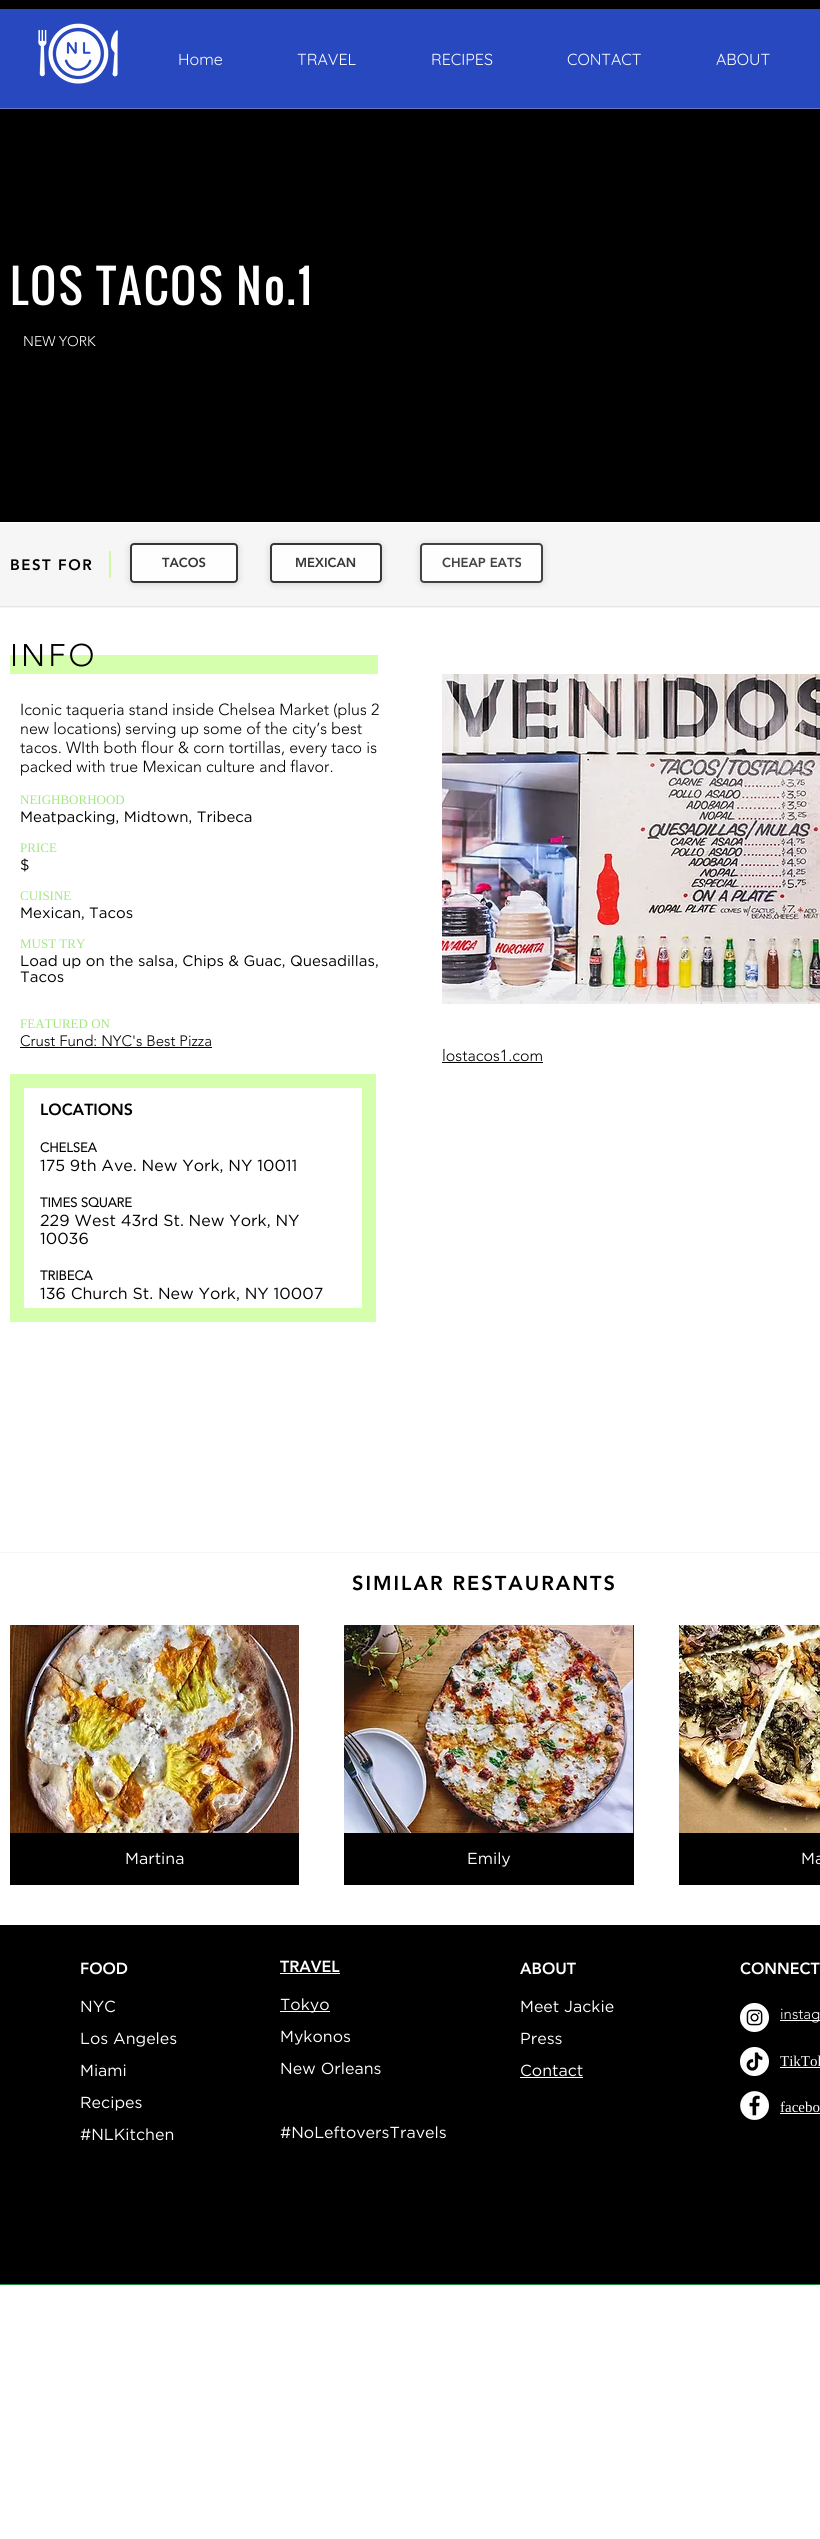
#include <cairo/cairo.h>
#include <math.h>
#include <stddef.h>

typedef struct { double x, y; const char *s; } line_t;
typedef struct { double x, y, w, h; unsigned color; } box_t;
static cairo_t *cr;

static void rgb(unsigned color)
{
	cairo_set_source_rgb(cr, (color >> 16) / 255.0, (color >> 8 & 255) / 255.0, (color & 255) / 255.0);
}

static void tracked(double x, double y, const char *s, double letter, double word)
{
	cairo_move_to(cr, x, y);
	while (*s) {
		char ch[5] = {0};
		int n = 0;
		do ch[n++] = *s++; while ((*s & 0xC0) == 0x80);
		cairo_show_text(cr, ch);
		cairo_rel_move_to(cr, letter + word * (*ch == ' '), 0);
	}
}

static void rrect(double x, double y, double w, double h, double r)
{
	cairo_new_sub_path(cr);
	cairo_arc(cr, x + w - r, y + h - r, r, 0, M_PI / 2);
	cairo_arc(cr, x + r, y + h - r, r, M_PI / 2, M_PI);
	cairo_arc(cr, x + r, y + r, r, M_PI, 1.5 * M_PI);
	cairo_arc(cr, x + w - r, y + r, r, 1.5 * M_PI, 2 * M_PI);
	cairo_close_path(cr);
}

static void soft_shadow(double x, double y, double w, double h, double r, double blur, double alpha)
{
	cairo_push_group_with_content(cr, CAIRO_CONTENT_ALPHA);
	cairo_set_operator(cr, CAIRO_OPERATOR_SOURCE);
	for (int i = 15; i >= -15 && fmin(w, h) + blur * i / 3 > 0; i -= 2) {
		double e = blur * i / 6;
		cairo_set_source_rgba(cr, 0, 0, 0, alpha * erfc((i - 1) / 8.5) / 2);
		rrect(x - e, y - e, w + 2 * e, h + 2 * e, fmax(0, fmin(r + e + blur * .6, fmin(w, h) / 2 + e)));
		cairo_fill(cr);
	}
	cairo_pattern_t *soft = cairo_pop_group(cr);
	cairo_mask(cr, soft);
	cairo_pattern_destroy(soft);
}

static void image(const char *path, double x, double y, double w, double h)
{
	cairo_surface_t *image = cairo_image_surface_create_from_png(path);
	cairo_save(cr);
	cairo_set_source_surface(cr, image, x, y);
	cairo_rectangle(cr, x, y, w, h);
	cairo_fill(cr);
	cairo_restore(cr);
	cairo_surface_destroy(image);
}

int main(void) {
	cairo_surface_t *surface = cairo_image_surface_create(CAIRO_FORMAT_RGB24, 820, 2539);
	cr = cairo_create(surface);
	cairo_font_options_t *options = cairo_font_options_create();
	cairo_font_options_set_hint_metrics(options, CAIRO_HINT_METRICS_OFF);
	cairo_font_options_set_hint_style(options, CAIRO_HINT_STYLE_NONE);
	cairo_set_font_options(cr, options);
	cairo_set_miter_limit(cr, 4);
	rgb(0xffffff);
	cairo_paint(cr);
	rgb(0x2848bf);
	cairo_rectangle(cr, 0, 9, 820, 99);
	cairo_fill(cr);
	image("img/1.png", 38, 23, 80, 61);
	{
		static const box_t items[] = {
			{0, 108, 820, 1, 0x6478c2},
			{0, 0, 820, 9, 0x000000},
			{0, 109, 820, 413, 0x000000},
			{0, 523, 820, 85, 0xf7f6f6},
			{109, 551, 2, 27, 0xd0f9a6},
		};
		for (size_t i = 0; i < sizeof items / sizeof *items; i++) {
			rgb(items[i].color);
			cairo_rectangle(cr, items[i].x, items[i].y, items[i].w, items[i].h);
			cairo_fill(cr);
		}
	}
	cairo_save(cr);
	cairo_set_fill_rule(cr, CAIRO_FILL_RULE_EVEN_ODD);
	cairo_new_path(cr);
	cairo_move_to(cr, 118, 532);
	cairo_line_to(cr, 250, 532);
	cairo_line_to(cr, 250, 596);
	cairo_line_to(cr, 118, 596);
	cairo_close_path(cr);
	cairo_move_to(cr, 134, 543);
	cairo_line_to(cr, 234, 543);
	cairo_curve_to(cr, 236, 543, 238, 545, 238, 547);
	cairo_line_to(cr, 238, 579);
	cairo_curve_to(cr, 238, 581, 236, 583, 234, 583);
	cairo_line_to(cr, 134, 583);
	cairo_curve_to(cr, 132, 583, 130, 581, 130, 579);
	cairo_line_to(cr, 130, 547);
	cairo_curve_to(cr, 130, 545, 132, 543, 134, 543);
	cairo_close_path(cr);
	cairo_clip(cr);
	rgb(0x999997);
	soft_shadow(130, 544, 108, 40, 4, 3.5, 0.39);
	cairo_restore(cr);
	cairo_set_source_rgba(cr, 1, 1, 1, 0.9);
	rrect(131, 544, 106, 38, 3);
	cairo_fill_preserve(cr);
	rgb(0x363636);
	cairo_stroke(cr);
	cairo_save(cr);
	cairo_set_fill_rule(cr, CAIRO_FILL_RULE_EVEN_ODD);
	cairo_new_path(cr);
	cairo_move_to(cr, 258, 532);
	cairo_line_to(cr, 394, 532);
	cairo_line_to(cr, 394, 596);
	cairo_line_to(cr, 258, 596);
	cairo_close_path(cr);
	cairo_move_to(cr, 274, 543);
	cairo_line_to(cr, 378, 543);
	cairo_curve_to(cr, 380, 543, 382, 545, 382, 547);
	cairo_line_to(cr, 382, 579);
	cairo_curve_to(cr, 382, 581, 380, 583, 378, 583);
	cairo_line_to(cr, 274, 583);
	cairo_curve_to(cr, 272, 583, 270, 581, 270, 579);
	cairo_line_to(cr, 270, 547);
	cairo_curve_to(cr, 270, 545, 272, 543, 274, 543);
	cairo_close_path(cr);
	cairo_clip(cr);
	rgb(0x999997);
	soft_shadow(270, 544, 112, 40, 4, 3.5, 0.39);
	cairo_restore(cr);
	cairo_set_source_rgba(cr, 1, 1, 1, 0.9);
	rrect(271, 544, 110, 38, 3);
	cairo_fill_preserve(cr);
	rgb(0x363636);
	cairo_stroke(cr);
	cairo_save(cr);
	cairo_set_fill_rule(cr, CAIRO_FILL_RULE_EVEN_ODD);
	cairo_new_path(cr);
	cairo_move_to(cr, 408, 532);
	cairo_line_to(cr, 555, 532);
	cairo_line_to(cr, 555, 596);
	cairo_line_to(cr, 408, 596);
	cairo_close_path(cr);
	cairo_move_to(cr, 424, 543);
	cairo_line_to(cr, 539, 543);
	cairo_curve_to(cr, 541, 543, 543, 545, 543, 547);
	cairo_line_to(cr, 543, 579);
	cairo_curve_to(cr, 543, 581, 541, 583, 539, 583);
	cairo_line_to(cr, 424, 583);
	cairo_curve_to(cr, 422, 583, 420, 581, 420, 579);
	cairo_line_to(cr, 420, 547);
	cairo_curve_to(cr, 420, 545, 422, 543, 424, 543);
	cairo_close_path(cr);
	cairo_clip(cr);
	rgb(0x999997);
	soft_shadow(420, 544, 123, 40, 4, 3.5, 0.39);
	cairo_restore(cr);
	cairo_set_source_rgba(cr, 1, 1, 1, 0.9);
	rrect(421, 544, 121, 38, 3);
	cairo_fill_preserve(cr);
	rgb(0x424242);
	cairo_stroke(cr);
	{
		static const box_t items[] = {
			{0, 606, 820, 1, 0xe5e4e4},
			{10, 655, 368, 19, 0xd5ffac},
			{20, 1047, 192, 1, 0x000000},
		};
		for (size_t i = 0; i < sizeof items / sizeof *items; i++) {
			rgb(items[i].color);
			cairo_rectangle(cr, items[i].x, items[i].y, items[i].w, items[i].h);
			cairo_fill(cr);
		}
	}
	image("img/2.png", 442, 674, 378, 330);
	cairo_rectangle(cr, 442, 1062, 101, 1);
	cairo_fill(cr);
	cairo_rectangle(cr, 17, 1081, 352, 234);
	rgb(0xd5ffac);
	cairo_set_line_width(cr, 14);
	cairo_stroke(cr);
	rgb(0xf4f4f4);
	cairo_rectangle(cr, 0, 1552, 820, 1);
	cairo_fill(cr);
	image("img/3.png", 10, 1625, 289, 208);
	rgb(0x000000);
	cairo_rectangle(cr, 10, 1833, 289, 52);
	cairo_fill(cr);
	rgb(0x2f2e2e);
	cairo_rectangle(cr, 633, 1625, 1, 208);
	cairo_fill(cr);
	image("img/4.png", 344, 1625, 289, 208);
	rgb(0x000000);
	cairo_rectangle(cr, 344, 1833, 290, 52);
	cairo_fill(cr);
	image("img/5.png", 679, 1625, 141, 208);
	{
		static const box_t items[] = {
			{679, 1833, 141, 52, 0x000000},
			{0, 1925, 820, 359, 0x000000},
			{280, 1973, 60, 1, 0xffffff},
			{280, 2011, 50, 1, 0xffffff},
			{520, 2077, 63, 1, 0xffffff},
		};
		for (size_t i = 0; i < sizeof items / sizeof *items; i++) {
			rgb(items[i].color);
			cairo_rectangle(cr, items[i].x, items[i].y, items[i].w, items[i].h);
			cairo_fill(cr);
		}
	}
	image("img/6.png", 740, 2003, 29, 29);
	image("img/7.png", 740, 2047, 29, 29);
	image("img/8.png", 740, 2091, 29, 29);
	{
		static const box_t items[] = {
			{780, 2020, 40, 1, 0xffffff},
			{780, 2067, 40, 1, 0xffffff},
			{780, 2113, 40, 1, 0xffffff},
			{0, 2284, 820, 1, 0x1c8a43},
		};
		for (size_t i = 0; i < sizeof items / sizeof *items; i++) {
			rgb(items[i].color);
			cairo_rectangle(cr, items[i].x, items[i].y, items[i].w, items[i].h);
			cairo_fill(cr);
		}
	}
	cairo_select_font_face(cr, "Quicksand", CAIRO_FONT_SLANT_NORMAL, CAIRO_FONT_WEIGHT_NORMAL);
	cairo_set_font_size(cr, 16);
	rgb(0xffffff);
	{
		static const line_t items[] = {
			{178, 65, "Home"},
			{297, 65, "TRAVEL"},
			{431, 65, "RECIPES"},
			{567, 65, "CONTACT"},
			{716, 65, "ABOUT"},
		};
		for (size_t i = 0; i < sizeof items / sizeof *items; i++) {
			cairo_move_to(cr, items[i].x, items[i].y);
			cairo_show_text(cr, items[i].s);
		}
	}
	cairo_select_font_face(cr, "Oswald", CAIRO_FONT_SLANT_NORMAL, CAIRO_FONT_WEIGHT_NORMAL);
	cairo_set_font_size(cr, 45);
	tracked(10, 305, "LOS TACOS No.1", 2.25, 0);
	cairo_select_font_face(cr, "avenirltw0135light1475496 Light", CAIRO_FONT_SLANT_NORMAL, CAIRO_FONT_WEIGHT_NORMAL);
	cairo_set_font_size(cr, 14);
	cairo_move_to(cr, 23, 346);
	cairo_show_text(cr, "NEW YORK");
	cairo_select_font_face(cr, "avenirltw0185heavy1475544 Black", CAIRO_FONT_SLANT_NORMAL, CAIRO_FONT_WEIGHT_NORMAL);
	cairo_set_font_size(cr, 15);
	rgb(0x000000);
	tracked(10, 570, "BEST FOR", 1.5, 0);
	cairo_set_font_size(cr, 13);
	rgb(0x363636);
	cairo_move_to(cr, 162, 567);
	cairo_show_text(cr, "TACOS");
	cairo_move_to(cr, 295, 567);
	cairo_show_text(cr, "MEXICAN");
	rgb(0x424242);
	cairo_move_to(cr, 442, 567);
	cairo_show_text(cr, "CHEAP EATS");
	cairo_select_font_face(cr, "avenirltw0135light1475496 Light", CAIRO_FONT_SLANT_NORMAL, CAIRO_FONT_WEIGHT_NORMAL);
	cairo_set_font_size(cr, 31);
	rgb(0x000000);
	tracked(10, 666, "INFO", 3, 0);
	cairo_set_font_size(cr, 16);
	{
		static const line_t items[] = {
			{20, 715, "Iconic taqueria stand inside Chelsea Market (plus 2"},
			{20, 734, "new locations) serving up some of the city’s best"},
			{20, 753, "tacos. WIth both flour & corn tortillas, every taco is"},
			{20, 772, "packed with true Mexican culture and flavor."},
		};
		for (size_t i = 0; i < sizeof items / sizeof *items; i++) {
			cairo_move_to(cr, items[i].x, items[i].y);
			cairo_show_text(cr, items[i].s);
		}
	}
	cairo_select_font_face(cr, "Liberation Serif", CAIRO_FONT_SLANT_NORMAL, CAIRO_FONT_WEIGHT_NORMAL);
	cairo_set_font_size(cr, 13);
	rgb(0xa4e683);
	cairo_move_to(cr, 20, 804);
	cairo_show_text(cr, "NEIGHBORHOOD");
	cairo_select_font_face(cr, "Gotham", CAIRO_FONT_SLANT_NORMAL, CAIRO_FONT_WEIGHT_NORMAL);
	cairo_set_font_size(cr, 15);
	rgb(0x000000);
	cairo_move_to(cr, 20, 822);
	cairo_show_text(cr, "Meatpacking, Midtown, Tribeca");
	cairo_select_font_face(cr, "Liberation Serif", CAIRO_FONT_SLANT_NORMAL, CAIRO_FONT_WEIGHT_NORMAL);
	cairo_set_font_size(cr, 13);
	rgb(0xa4e683);
	cairo_move_to(cr, 20, 852);
	cairo_show_text(cr, "PRICE");
	cairo_select_font_face(cr, "Gotham", CAIRO_FONT_SLANT_NORMAL, CAIRO_FONT_WEIGHT_NORMAL);
	cairo_set_font_size(cr, 15);
	rgb(0x000000);
	cairo_move_to(cr, 20, 870);
	cairo_show_text(cr, "$");
	cairo_select_font_face(cr, "Liberation Serif", CAIRO_FONT_SLANT_NORMAL, CAIRO_FONT_WEIGHT_NORMAL);
	cairo_set_font_size(cr, 13);
	rgb(0xa4e683);
	cairo_move_to(cr, 20, 900);
	cairo_show_text(cr, "CUISINE");
	cairo_select_font_face(cr, "Gotham", CAIRO_FONT_SLANT_NORMAL, CAIRO_FONT_WEIGHT_NORMAL);
	cairo_set_font_size(cr, 15);
	rgb(0x000000);
	cairo_move_to(cr, 20, 918);
	cairo_show_text(cr, "Mexican, Tacos");
	cairo_select_font_face(cr, "Liberation Serif", CAIRO_FONT_SLANT_NORMAL, CAIRO_FONT_WEIGHT_NORMAL);
	cairo_set_font_size(cr, 13);
	rgb(0xa4e683);
	cairo_move_to(cr, 20, 948);
	cairo_show_text(cr, "MUST TRY");
	cairo_select_font_face(cr, "Gotham", CAIRO_FONT_SLANT_NORMAL, CAIRO_FONT_WEIGHT_NORMAL);
	cairo_set_font_size(cr, 15);
	rgb(0x000000);
	cairo_move_to(cr, 20, 966);
	cairo_show_text(cr, "Load up on the salsa, Chips & Guac, Quesadillas,");
	cairo_move_to(cr, 20, 982);
	cairo_show_text(cr, "Tacos");
	cairo_select_font_face(cr, "Liberation Serif", CAIRO_FONT_SLANT_NORMAL, CAIRO_FONT_WEIGHT_NORMAL);
	cairo_set_font_size(cr, 13);
	rgb(0xa4e683);
	cairo_move_to(cr, 20, 1028);
	cairo_show_text(cr, "FEATURED ON");
	cairo_select_font_face(cr, "avenirltw0135light1475496 Light", CAIRO_FONT_SLANT_NORMAL, CAIRO_FONT_WEIGHT_NORMAL);
	cairo_set_font_size(cr, 15);
	rgb(0x000000);
	cairo_move_to(cr, 20, 1046);
	cairo_show_text(cr, "Crust Fund: NYC's Best Pizza");
	cairo_set_font_size(cr, 16);
	cairo_move_to(cr, 442, 1061);
	cairo_show_text(cr, "lostacos1.com");
	cairo_select_font_face(cr, "avenirltw0185heavy1475544 Black", CAIRO_FONT_SLANT_NORMAL, CAIRO_FONT_WEIGHT_NORMAL);
	cairo_move_to(cr, 40, 1115);
	cairo_show_text(cr, "LOCATIONS");
	cairo_select_font_face(cr, "avenirltw0135light1475496", CAIRO_FONT_SLANT_NORMAL, CAIRO_FONT_WEIGHT_BOLD);
	cairo_set_font_size(cr, 13);
	cairo_move_to(cr, 40, 1152);
	cairo_show_text(cr, "CHELSEA");
	cairo_select_font_face(cr, "Gotham", CAIRO_FONT_SLANT_NORMAL, CAIRO_FONT_WEIGHT_NORMAL);
	cairo_set_font_size(cr, 16);
	cairo_move_to(cr, 40, 1171);
	cairo_show_text(cr, "175 9th Ave. New York, NY 10011");
	cairo_select_font_face(cr, "avenirltw0135light1475496", CAIRO_FONT_SLANT_NORMAL, CAIRO_FONT_WEIGHT_BOLD);
	cairo_set_font_size(cr, 13);
	cairo_move_to(cr, 40, 1207);
	cairo_show_text(cr, "TIMES SQUARE");
	cairo_select_font_face(cr, "Gotham", CAIRO_FONT_SLANT_NORMAL, CAIRO_FONT_WEIGHT_NORMAL);
	cairo_set_font_size(cr, 16);
	cairo_move_to(cr, 40, 1226);
	cairo_show_text(cr, "229 West 43rd St. New York, NY");
	cairo_move_to(cr, 40, 1244);
	cairo_show_text(cr, "10036");
	cairo_select_font_face(cr, "avenirltw0135light1475496", CAIRO_FONT_SLANT_NORMAL, CAIRO_FONT_WEIGHT_BOLD);
	cairo_set_font_size(cr, 13);
	cairo_move_to(cr, 40, 1280);
	cairo_show_text(cr, "TRIBECA");
	cairo_select_font_face(cr, "Gotham", CAIRO_FONT_SLANT_NORMAL, CAIRO_FONT_WEIGHT_NORMAL);
	cairo_set_font_size(cr, 16);
	cairo_move_to(cr, 40, 1299);
	cairo_show_text(cr, "136 Church St. New York, NY 10007");
	cairo_select_font_face(cr, "avenirltw0185heavy1475544 Black", CAIRO_FONT_SLANT_NORMAL, CAIRO_FONT_WEIGHT_NORMAL);
	cairo_set_font_size(cr, 20);
	tracked(352, 1590, "SIMILAR RESTAURANTS", 2, 0);
	cairo_select_font_face(cr, "Gotham", CAIRO_FONT_SLANT_NORMAL, CAIRO_FONT_WEIGHT_NORMAL);
	cairo_set_font_size(cr, 16);
	rgb(0xffffff);
	{
		static const line_t items[] = {
			{125, 1864, "Martina"},
			{467, 1864, "Emily"},
			{801, 1864, "Ma"},
		};
		for (size_t i = 0; i < sizeof items / sizeof *items; i++) {
			cairo_move_to(cr, items[i].x, items[i].y);
			cairo_show_text(cr, items[i].s);
		}
	}
	cairo_select_font_face(cr, "avenirltw0185heavy1475544 Black", CAIRO_FONT_SLANT_NORMAL, CAIRO_FONT_WEIGHT_NORMAL);
	{
		static const line_t items[] = {
			{80, 1974, "FOOD"},
			{280, 1972, "TRAVEL"},
			{520, 1974, "ABOUT"},
			{740, 1974, "CONNECT"},
		};
		for (size_t i = 0; i < sizeof items / sizeof *items; i++) {
			cairo_move_to(cr, items[i].x, items[i].y);
			cairo_show_text(cr, items[i].s);
		}
	}
	cairo_select_font_face(cr, "Gotham", CAIRO_FONT_SLANT_NORMAL, CAIRO_FONT_WEIGHT_NORMAL);
	{
		static const line_t items[] = {
			{80, 2012, "NYC"},
			{80, 2044, "Los Angeles"},
			{80, 2076, "Miami"},
			{80, 2108, "Recipes"},
			{80, 2140, "#NLKitchen"},
			{280, 2010, "Tokyo"},
			{280, 2042, "Mykonos"},
			{280, 2074, "New Orleans"},
			{280, 2138, "#NoLeftoversTravels"},
			{520, 2012, "Meet Jackie"},
			{520, 2044, "Press"},
			{520, 2076, "Contact"},
		};
		for (size_t i = 0; i < sizeof items / sizeof *items; i++) {
			cairo_move_to(cr, items[i].x, items[i].y);
			cairo_show_text(cr, items[i].s);
		}
	}
	cairo_select_font_face(cr, "avenirltw0135light1475496 Light", CAIRO_FONT_SLANT_NORMAL, CAIRO_FONT_WEIGHT_NORMAL);
	cairo_set_font_size(cr, 15);
	cairo_move_to(cr, 780, 2019);
	cairo_show_text(cr, "instag");
	cairo_select_font_face(cr, "Liberation Serif", CAIRO_FONT_SLANT_NORMAL, CAIRO_FONT_WEIGHT_NORMAL);
	cairo_move_to(cr, 780, 2066);
	cairo_show_text(cr, "TikTok");
	cairo_move_to(cr, 780, 2112);
	cairo_show_text(cr, "facebo");
	cairo_surface_write_to_png(surface, "page.png");
	cairo_font_options_destroy(options);
	cairo_destroy(cr);
	cairo_surface_destroy(surface);
	return 0;
}
